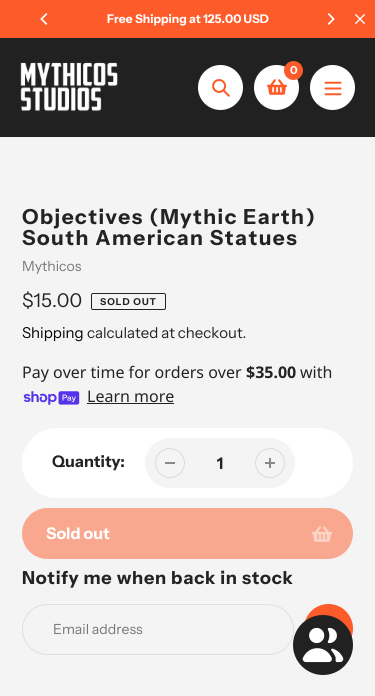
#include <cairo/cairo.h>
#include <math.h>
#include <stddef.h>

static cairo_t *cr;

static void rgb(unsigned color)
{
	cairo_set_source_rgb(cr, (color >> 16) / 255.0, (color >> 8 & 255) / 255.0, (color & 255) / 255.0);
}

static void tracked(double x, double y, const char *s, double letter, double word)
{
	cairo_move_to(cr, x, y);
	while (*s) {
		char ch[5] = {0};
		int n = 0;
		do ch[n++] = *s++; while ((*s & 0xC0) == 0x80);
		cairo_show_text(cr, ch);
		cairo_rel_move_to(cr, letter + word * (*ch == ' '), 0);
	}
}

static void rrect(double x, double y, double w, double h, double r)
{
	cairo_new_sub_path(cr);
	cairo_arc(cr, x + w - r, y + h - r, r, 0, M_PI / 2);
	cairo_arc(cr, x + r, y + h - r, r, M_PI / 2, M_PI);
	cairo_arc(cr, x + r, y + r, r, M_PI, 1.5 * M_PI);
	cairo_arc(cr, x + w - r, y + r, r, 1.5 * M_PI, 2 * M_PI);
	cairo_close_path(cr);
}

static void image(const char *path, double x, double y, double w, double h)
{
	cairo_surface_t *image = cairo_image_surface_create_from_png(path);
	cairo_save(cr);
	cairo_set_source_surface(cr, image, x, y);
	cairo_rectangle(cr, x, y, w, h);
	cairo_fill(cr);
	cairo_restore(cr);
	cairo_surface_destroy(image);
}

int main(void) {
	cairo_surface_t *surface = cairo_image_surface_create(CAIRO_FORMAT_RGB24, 375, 696);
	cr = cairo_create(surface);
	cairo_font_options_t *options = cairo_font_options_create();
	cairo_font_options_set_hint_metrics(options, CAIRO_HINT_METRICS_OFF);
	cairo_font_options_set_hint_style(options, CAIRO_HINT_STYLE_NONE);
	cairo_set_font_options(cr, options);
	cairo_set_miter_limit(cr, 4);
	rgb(0xf4f4f4);
	cairo_paint(cr);
	rgb(0xfd5b2a);
	cairo_rectangle(cr, 0, 0, 375, 38);
	cairo_fill(cr);
	image("img/1.png", 40, 13, 8, 12);
	image("img/2.png", 327, 13, 8, 12);
	image("img/3.png", 355, 14, 10, 10);
	rgb(0x212121);
	cairo_rectangle(cr, 0, 38, 375, 99);
	cairo_fill(cr);
	image("img/4.png", 20, 62, 98, 50);
	rgb(0xffffff);
	cairo_arc(cr, 220.5, 87.5, 22.5, 0, 2 * M_PI);
	cairo_fill(cr);
	image("img/5.png", 212, 79, 18, 18);
	cairo_arc(cr, 276.5, 87.5, 22.5, 0, 2 * M_PI);
	cairo_fill(cr);
	image("img/6.png", 267, 79, 20, 16);
	rgb(0xfd5b2a);
	cairo_arc(cr, 293.5, 70.5, 9.5, 0, 2 * M_PI);
	cairo_fill(cr);
	rgb(0xffffff);
	cairo_arc(cr, 332.5, 87.5, 22.5, 0, 2 * M_PI);
	cairo_fill(cr);
	image("img/7.png", 324, 81, 18, 15);
	rrect(91.5, 293.5, 74, 16, 1.5);
	rgb(0x232323);
	cairo_set_line_width(cr, 1);
	cairo_stroke(cr);
	image("img/8.png", 23, 391, 57, 14);
	cairo_rectangle(cr, 87, 403, 87, 1);
	cairo_fill(cr);
	rgb(0xffffff);
	rrect(22, 428, 331, 70, 35);
	cairo_fill(cr);
	rgb(0xf4f4f4);
	rrect(145, 438, 150, 50, 25);
	cairo_fill(cr);
	rgb(0x898989);
	cairo_rectangle(cr, 165, 462, 10, 2);
	cairo_fill(cr);
	cairo_arc(cr, 170, 463, 14.5, 0, 2 * M_PI);
	rgb(0xd7dbdb);
	cairo_stroke(cr);
	image("img/9.png", 265, 458, 10, 10);
	cairo_arc(cr, 270, 463, 14.5, 0, 2 * M_PI);
	cairo_stroke(cr);
	rgb(0xf9a88f);
	rrect(22, 508, 331, 51, 25.5);
	cairo_fill(cr);
	image("img/10.png", 312, 526, 20, 16);
	rrect(22.5, 604.5, 271, 50, 25);
	rgb(0xdfdfdf);
	cairo_stroke(cr);
	rgb(0xfd5b2a);
	cairo_arc(cr, 328.5, 628.5, 24.5, 0, 2 * M_PI);
	cairo_fill(cr);
	rgb(0x212121);
	cairo_arc(cr, 323, 645, 30, 0, 2 * M_PI);
	cairo_fill(cr);
	image("img/11.png", 302, 627, 42, 36);
	cairo_select_font_face(cr, "Instrument Sans", CAIRO_FONT_SLANT_NORMAL, CAIRO_FONT_WEIGHT_BOLD);
	cairo_set_font_size(cr, 12);
	rgb(0xffffff);
	cairo_move_to(cr, 107, 23);
	cairo_show_text(cr, "Free Shipping at 125.00 USD");
	cairo_set_font_size(cr, 11);
	cairo_move_to(cr, 290, 74);
	cairo_show_text(cr, "0");
	cairo_set_font_size(cr, 20.75);
	rgb(0x232323);
	tracked(22, 224, "Objectives (Mythic Earth)", 1.5, 0);
	tracked(22, 245, "South American Statues", 1.5, 0);
	cairo_select_font_face(cr, "Instrument Sans", CAIRO_FONT_SLANT_NORMAL, CAIRO_FONT_WEIGHT_NORMAL);
	cairo_set_font_size(cr, 14);
	rgb(0x777777);
	cairo_move_to(cr, 22, 271);
	cairo_show_text(cr, "Mythicos");
	cairo_set_font_size(cr, 19);
	rgb(0x232323);
	cairo_move_to(cr, 22, 307);
	cairo_show_text(cr, "$15.00");
	cairo_select_font_face(cr, "Instrument Sans", CAIRO_FONT_SLANT_NORMAL, CAIRO_FONT_WEIGHT_BOLD);
	cairo_set_font_size(cr, 9.5);
	tracked(100, 305, "SOLD OUT", 1, 0);
	cairo_select_font_face(cr, "Instrument Sans", CAIRO_FONT_SLANT_NORMAL, CAIRO_FONT_WEIGHT_NORMAL);
	cairo_set_font_size(cr, 15);
	rgb(0x000000);
	cairo_move_to(cr, 22, 338);
	cairo_show_text(cr, "Shipping");
	rgb(0x232323);
	cairo_move_to(cr, 87, 338);
	cairo_show_text(cr, "calculated at checkout.");
	cairo_select_font_face(cr, "Noto Sans", CAIRO_FONT_SLANT_NORMAL, CAIRO_FONT_WEIGHT_NORMAL);
	cairo_set_font_size(cr, 16);
	cairo_move_to(cr, 22, 378);
	cairo_show_text(cr, "Pay over time for orders over");
	cairo_select_font_face(cr, "Noto Sans", CAIRO_FONT_SLANT_NORMAL, CAIRO_FONT_WEIGHT_BOLD);
	cairo_move_to(cr, 246, 378);
	cairo_show_text(cr, "$35.00");
	cairo_select_font_face(cr, "Noto Sans", CAIRO_FONT_SLANT_NORMAL, CAIRO_FONT_WEIGHT_NORMAL);
	cairo_move_to(cr, 300, 378);
	cairo_show_text(cr, "with");
	cairo_move_to(cr, 87, 402);
	cairo_show_text(cr, "Learn more");
	cairo_select_font_face(cr, "Instrument Sans", CAIRO_FONT_SLANT_NORMAL, CAIRO_FONT_WEIGHT_BOLD);
	cairo_move_to(cr, 52, 467);
	cairo_show_text(cr, "Quantity:");
	cairo_move_to(cr, 217, 469);
	cairo_show_text(cr, "1");
	rgb(0xffffff);
	cairo_move_to(cr, 46, 539);
	cairo_show_text(cr, "Sold out");
	cairo_set_font_size(cr, 18);
	rgb(0x232323);
	tracked(22, 584, "Notify me when back in stock", 0.75, 0);
	cairo_select_font_face(cr, "Instrument Sans", CAIRO_FONT_SLANT_NORMAL, CAIRO_FONT_WEIGHT_NORMAL);
	cairo_set_font_size(cr, 14);
	rgb(0x777777);
	cairo_move_to(cr, 53, 634);
	cairo_show_text(cr, "Email address");
	cairo_surface_write_to_png(surface, "page.png");
	cairo_font_options_destroy(options);
	cairo_destroy(cr);
	cairo_surface_destroy(surface);
	return 0;
}
